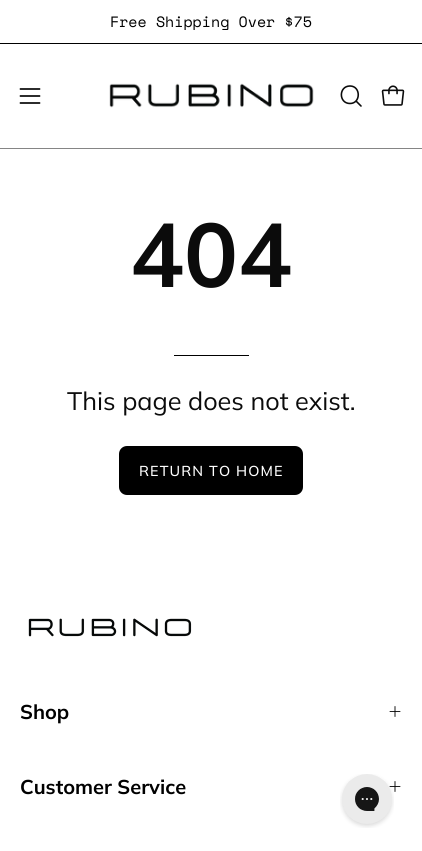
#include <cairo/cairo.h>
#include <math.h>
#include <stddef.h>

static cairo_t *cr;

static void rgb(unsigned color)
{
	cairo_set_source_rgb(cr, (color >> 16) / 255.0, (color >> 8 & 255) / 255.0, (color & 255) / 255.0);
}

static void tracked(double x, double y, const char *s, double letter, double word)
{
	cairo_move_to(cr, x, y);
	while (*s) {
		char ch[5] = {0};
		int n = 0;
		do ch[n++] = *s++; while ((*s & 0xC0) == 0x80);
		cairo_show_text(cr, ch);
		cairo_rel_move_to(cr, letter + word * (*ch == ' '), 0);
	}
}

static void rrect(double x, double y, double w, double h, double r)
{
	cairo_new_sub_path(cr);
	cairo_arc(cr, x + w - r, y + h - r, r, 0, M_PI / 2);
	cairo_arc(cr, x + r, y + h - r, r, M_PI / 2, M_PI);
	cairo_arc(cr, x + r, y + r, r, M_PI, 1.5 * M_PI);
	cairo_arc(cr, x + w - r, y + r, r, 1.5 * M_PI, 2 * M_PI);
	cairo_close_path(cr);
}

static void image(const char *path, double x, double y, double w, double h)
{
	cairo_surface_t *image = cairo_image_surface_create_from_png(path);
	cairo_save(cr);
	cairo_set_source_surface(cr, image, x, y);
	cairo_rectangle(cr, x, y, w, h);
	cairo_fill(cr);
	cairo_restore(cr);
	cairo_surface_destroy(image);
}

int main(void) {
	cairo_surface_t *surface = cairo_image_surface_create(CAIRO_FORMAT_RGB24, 422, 851);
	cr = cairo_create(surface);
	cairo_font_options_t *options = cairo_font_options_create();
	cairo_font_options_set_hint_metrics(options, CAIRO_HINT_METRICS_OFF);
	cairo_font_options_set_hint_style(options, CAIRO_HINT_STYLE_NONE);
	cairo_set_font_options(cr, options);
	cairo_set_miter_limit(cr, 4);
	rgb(0xffffff);
	cairo_paint(cr);
	rgb(0x000000);
	cairo_rectangle(cr, 0, 43, 422, 1);
	cairo_fill(cr);
	cairo_new_path(cr);
	cairo_move_to(cr, 20.5, 96);
	cairo_line_to(cr, 39.5, 96);
	cairo_move_to(cr, 20.5, 89);
	cairo_line_to(cr, 39.5, 89);
	cairo_move_to(cr, 20.5, 103);
	cairo_line_to(cr, 39.5, 103);
	rgb(0x0b0b0b);
	cairo_set_line_width(cr, 1.8);
	cairo_set_line_cap(cr, CAIRO_LINE_CAP_ROUND);
	cairo_set_line_join(cr, CAIRO_LINE_JOIN_ROUND);
	cairo_stroke(cr);
	image("img/1.png", 109, 83, 205, 25);
	cairo_new_path(cr);
	cairo_move_to(cr, 350, 103.5);
	cairo_curve_to(cr, 361, 103.5, 361, 86, 350, 86);
	cairo_curve_to(cr, 338.5, 86, 338.5, 103.5, 350, 103.5);
	cairo_close_path(cr);
	cairo_move_to(cr, 356, 101);
	cairo_line_to(cr, 361, 106);
	cairo_set_line_width(cr, 1.6);
	cairo_stroke(cr);
	image("img/2.png", 381, 85, 24, 21);
	rgb(0x858585);
	cairo_rectangle(cr, 0, 148, 422, 1);
	cairo_fill(cr);
	rgb(0x000000);
	cairo_rectangle(cr, 174, 355, 75, 1);
	cairo_fill(cr);
	rrect(119, 446, 184, 49, 8);
	cairo_fill(cr);
	image("img/3.png", 28, 618, 164, 19);
	cairo_new_path(cr);
	cairo_move_to(cr, 390, 711.5);
	cairo_line_to(cr, 400, 711.5);
	cairo_move_to(cr, 395, 706.5);
	cairo_line_to(cr, 395, 716.5);
	cairo_set_line_width(cr, 0.9);
	cairo_stroke(cr);
	cairo_new_path(cr);
	cairo_move_to(cr, 390, 786.5);
	cairo_line_to(cr, 400, 786.5);
	cairo_move_to(cr, 395, 781.5);
	cairo_line_to(cr, 395, 791.5);
	cairo_stroke(cr);
	image("img/4.png", 340, 774, 54, 54);
	cairo_select_font_face(cr, "Space Mono", CAIRO_FONT_SLANT_NORMAL, CAIRO_FONT_WEIGHT_NORMAL);
	cairo_set_font_size(cr, 15);
	cairo_move_to(cr, 110, 27);
	cairo_show_text(cr, "Free Shipping Over $75");
	cairo_select_font_face(cr, "Muli", CAIRO_FONT_SLANT_NORMAL, CAIRO_FONT_WEIGHT_BOLD);
	cairo_set_font_size(cr, 90);
	rgb(0x0b0b0b);
	cairo_move_to(cr, 130, 287);
	cairo_show_text(cr, "404");
	cairo_select_font_face(cr, "Muli", CAIRO_FONT_SLANT_NORMAL, CAIRO_FONT_WEIGHT_NORMAL);
	cairo_set_font_size(cr, 25.25);
	cairo_move_to(cr, 67, 410);
	cairo_show_text(cr, "This page does not exist.");
	cairo_select_font_face(cr, "Muli Medium", CAIRO_FONT_SLANT_NORMAL, CAIRO_FONT_WEIGHT_NORMAL);
	cairo_set_font_size(cr, 14.4);
	rgb(0xffffff);
	tracked(139, 476, "RETURN TO HOME", 1.1, 0);
	cairo_select_font_face(cr, "Muli", CAIRO_FONT_SLANT_NORMAL, CAIRO_FONT_WEIGHT_BOLD);
	cairo_set_font_size(cr, 20);
	rgb(0x000000);
	cairo_move_to(cr, 20, 719);
	cairo_show_text(cr, "Shop");
	cairo_move_to(cr, 20, 794);
	cairo_show_text(cr, "Customer Service");
	cairo_surface_write_to_png(surface, "page.png");
	cairo_font_options_destroy(options);
	cairo_destroy(cr);
	cairo_surface_destroy(surface);
	return 0;
}
